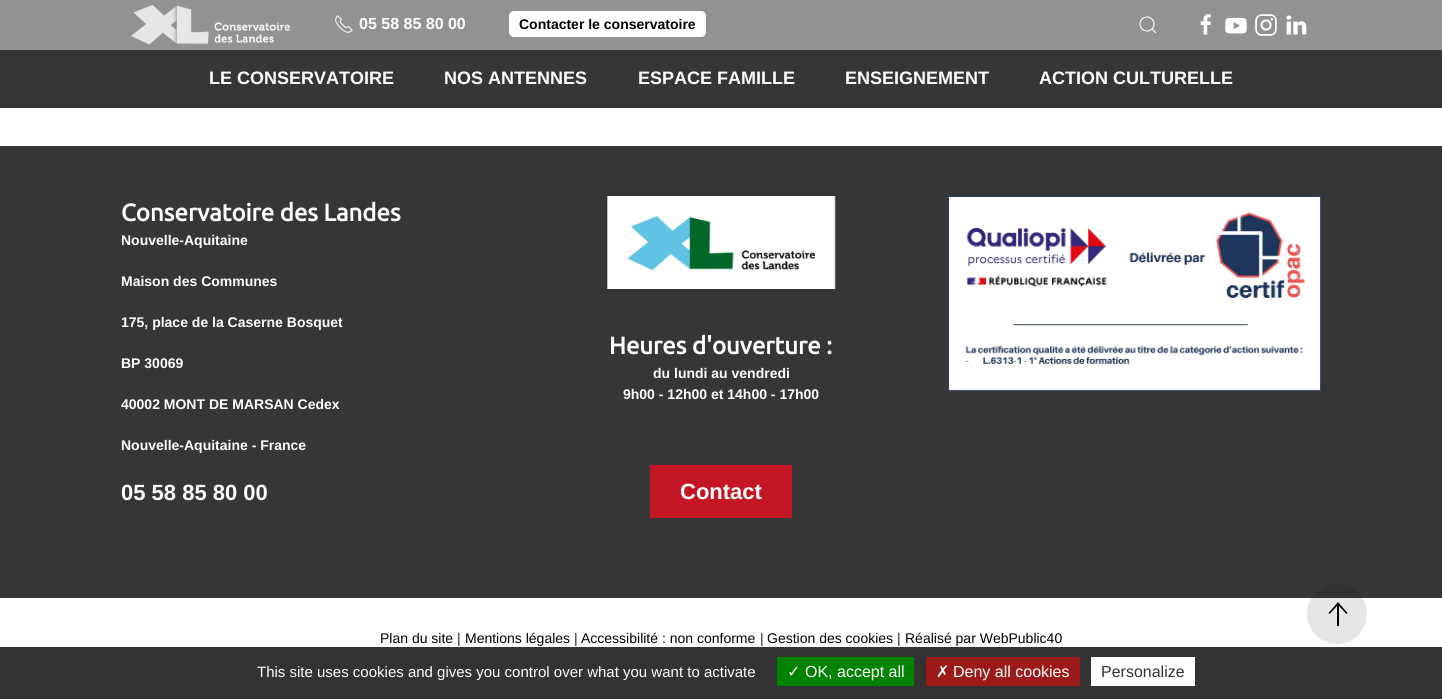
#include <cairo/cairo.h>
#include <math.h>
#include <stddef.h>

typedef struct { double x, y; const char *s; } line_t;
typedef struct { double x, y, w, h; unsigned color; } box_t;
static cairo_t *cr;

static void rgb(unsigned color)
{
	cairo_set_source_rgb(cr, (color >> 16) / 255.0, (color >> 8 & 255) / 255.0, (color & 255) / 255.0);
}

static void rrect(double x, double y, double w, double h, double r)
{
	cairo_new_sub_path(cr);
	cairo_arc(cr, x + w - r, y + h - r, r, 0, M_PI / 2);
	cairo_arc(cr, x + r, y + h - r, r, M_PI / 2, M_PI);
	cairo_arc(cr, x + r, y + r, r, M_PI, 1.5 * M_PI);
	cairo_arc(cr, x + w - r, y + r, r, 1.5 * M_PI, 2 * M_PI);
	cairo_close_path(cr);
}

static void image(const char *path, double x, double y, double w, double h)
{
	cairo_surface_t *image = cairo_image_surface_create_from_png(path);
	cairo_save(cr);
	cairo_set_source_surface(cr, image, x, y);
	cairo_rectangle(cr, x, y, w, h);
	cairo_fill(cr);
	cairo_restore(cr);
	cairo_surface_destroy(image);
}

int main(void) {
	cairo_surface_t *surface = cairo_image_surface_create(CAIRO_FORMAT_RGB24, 1442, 699);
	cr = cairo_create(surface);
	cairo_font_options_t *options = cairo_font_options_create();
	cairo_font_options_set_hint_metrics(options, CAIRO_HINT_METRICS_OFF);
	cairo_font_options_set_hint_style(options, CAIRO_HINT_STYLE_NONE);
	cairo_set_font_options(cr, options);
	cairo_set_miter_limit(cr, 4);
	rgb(0xffffff);
	cairo_paint(cr);
	rgb(0x929292);
	cairo_rectangle(cr, 0, 0, 1442, 50);
	cairo_fill(cr);
	image("img/1.png", 131, 5, 159, 40);
	image("img/2.png", 335, 15, 18, 18);
	rgb(0xffffff);
	rrect(509, 11, 197, 26, 5);
	cairo_fill(cr);
	cairo_arc(cr, 1147, 24, 7, 0, 2 * M_PI);
	cairo_set_line_width(cr, 1.1);
	cairo_stroke(cr);
	cairo_new_path(cr);
	cairo_move_to(cr, 1152, 29);
	cairo_line_to(cr, 1156, 33);
	cairo_close_path(cr);
	cairo_stroke(cr);
	image("img/3.png", 1200, 14, 11, 21);
	image("img/4.png", 1225, 17, 22, 17);
	image("img/5.png", 1255, 14, 22, 22);
	image("img/6.png", 1286, 15, 21, 20);
	rgb(0x363636);
	cairo_rectangle(cr, 0, 50, 1442, 58);
	cairo_fill(cr);
	cairo_rectangle(cr, 0, 146, 1442, 452);
	cairo_fill(cr);
	cairo_set_source_rgba(cr, 0, 0, 0, 0.1);
	cairo_arc(cr, 1337, 614, 30, 0, 2 * M_PI);
	cairo_fill(cr);
	rgb(0x000000);
	cairo_new_path(cr);
	cairo_move_to(cr, 1338, 602);
	cairo_line_to(cr, 1347.5, 613);
	cairo_line_to(cr, 1346.5, 614);
	cairo_line_to(cr, 1338, 605);
	cairo_line_to(cr, 1329.5, 614);
	cairo_line_to(cr, 1328.5, 613);
	cairo_close_path(cr);
	cairo_fill(cr);
	cairo_rectangle(cr, 1337, 604, 2, 22);
	cairo_fill(cr);
	image("img/7.png", 607, 196, 229, 93);
	rgb(0xc41524);
	cairo_rectangle(cr, 650, 465, 142, 53);
	cairo_fill(cr);
	image("img/8.png", 948, 196, 373, 195);
	{
		static const box_t items[] = {
			{0, 647, 1442, 52, 0x333333},
			{777, 657, 137, 29, 0x008300},
			{926, 657, 154, 29, 0x9c1a1a},
			{1091, 657, 104, 29, 0xffffff},
		};
		for (size_t i = 0; i < sizeof items / sizeof *items; i++) {
			rgb(items[i].color);
			cairo_rectangle(cr, items[i].x, items[i].y, items[i].w, items[i].h);
			cairo_fill(cr);
		}
	}
	cairo_select_font_face(cr, "Liberation Sans", CAIRO_FONT_SLANT_NORMAL, CAIRO_FONT_WEIGHT_BOLD);
	cairo_set_font_size(cr, 16);
	cairo_move_to(cr, 359, 29);
	cairo_show_text(cr, "05 58 85 80 00");
	cairo_set_font_size(cr, 14);
	rgb(0x000000);
	cairo_move_to(cr, 519, 29);
	cairo_show_text(cr, "Contacter le conservatoire");
	cairo_set_font_size(cr, 18);
	rgb(0xffffff);
	{
		static const line_t items[] = {
			{209, 84, "LE CONSERVATOIRE"},
			{444, 84, "NOS ANTENNES"},
			{638, 84, "ESPACE FAMILLE"},
			{845, 84, "ENSEIGNEMENT"},
			{1039, 84, "ACTION CULTURELLE"},
		};
		for (size_t i = 0; i < sizeof items / sizeof *items; i++) {
			cairo_move_to(cr, items[i].x, items[i].y);
			cairo_show_text(cr, items[i].s);
		}
	}
	cairo_select_font_face(cr, "Ubuntu", CAIRO_FONT_SLANT_NORMAL, CAIRO_FONT_WEIGHT_BOLD);
	cairo_set_font_size(cr, 24);
	cairo_move_to(cr, 121, 221);
	cairo_show_text(cr, "Conservatoire des Landes");
	cairo_select_font_face(cr, "Liberation Sans", CAIRO_FONT_SLANT_NORMAL, CAIRO_FONT_WEIGHT_BOLD);
	cairo_set_font_size(cr, 14);
	{
		static const line_t items[] = {
			{121, 245, "Nouvelle-Aquitaine"},
			{121, 286, "Maison des Communes"},
			{121, 327, "175, place de la Caserne Bosquet"},
			{121, 368, "BP 30069"},
			{121, 409, "40002 MONT DE MARSAN Cedex"},
			{121, 450, "Nouvelle-Aquitaine - France"},
		};
		for (size_t i = 0; i < sizeof items / sizeof *items; i++) {
			cairo_move_to(cr, items[i].x, items[i].y);
			cairo_show_text(cr, items[i].s);
		}
	}
	cairo_set_font_size(cr, 22);
	cairo_move_to(cr, 121, 500);
	cairo_show_text(cr, "05 58 85 80 00");
	cairo_select_font_face(cr, "Ubuntu", CAIRO_FONT_SLANT_NORMAL, CAIRO_FONT_WEIGHT_BOLD);
	cairo_set_font_size(cr, 24);
	cairo_move_to(cr, 609, 354);
	cairo_show_text(cr, "Heures d'ouverture :");
	cairo_select_font_face(cr, "Liberation Sans", CAIRO_FONT_SLANT_NORMAL, CAIRO_FONT_WEIGHT_BOLD);
	cairo_set_font_size(cr, 14);
	cairo_move_to(cr, 653, 378);
	cairo_show_text(cr, "du lundi au vendredi");
	cairo_move_to(cr, 623, 399);
	cairo_show_text(cr, "9h00 - 12h00 et 14h00 - 17h00");
	cairo_set_font_size(cr, 22);
	cairo_move_to(cr, 680, 499);
	cairo_show_text(cr, "Contact");
	cairo_select_font_face(cr, "Liberation Sans", CAIRO_FONT_SLANT_NORMAL, CAIRO_FONT_WEIGHT_NORMAL);
	cairo_set_font_size(cr, 14);
	rgb(0x000000);
	cairo_move_to(cr, 380, 643);
	cairo_show_text(cr, "Plan du site");
	rgb(0x212529);
	cairo_move_to(cr, 457, 643);
	cairo_show_text(cr, "|");
	rgb(0x000000);
	cairo_move_to(cr, 465, 643);
	cairo_show_text(cr, "Mentions légales");
	rgb(0x212529);
	cairo_move_to(cr, 574, 643);
	cairo_show_text(cr, "|");
	rgb(0x000000);
	cairo_move_to(cr, 581, 643);
	cairo_show_text(cr, "Accessibilité : non conforme");
	rgb(0x212529);
	cairo_move_to(cr, 760, 643);
	cairo_show_text(cr, "|");
	rgb(0x000000);
	cairo_move_to(cr, 767, 643);
	cairo_show_text(cr, "Gestion des cookies");
	rgb(0x212529);
	cairo_move_to(cr, 897, 643);
	cairo_show_text(cr, "|");
	rgb(0x000000);
	cairo_move_to(cr, 905, 643);
	cairo_show_text(cr, "Réalisé par WebPublic40");
	cairo_set_font_size(cr, 15);
	rgb(0xffffff);
	cairo_move_to(cr, 257, 677);
	cairo_show_text(cr, "This site uses cookies and gives you control over what you want to activate");
	cairo_select_font_face(cr, "DejaVu Sans", CAIRO_FONT_SLANT_NORMAL, CAIRO_FONT_WEIGHT_NORMAL);
	cairo_set_font_size(cr, 16);
	cairo_move_to(cr, 787, 677);
	cairo_show_text(cr, "✓");
	cairo_select_font_face(cr, "Liberation Sans", CAIRO_FONT_SLANT_NORMAL, CAIRO_FONT_WEIGHT_NORMAL);
	cairo_move_to(cr, 805, 677);
	cairo_show_text(cr, "OK, accept all");
	cairo_select_font_face(cr, "DejaVu Sans", CAIRO_FONT_SLANT_NORMAL, CAIRO_FONT_WEIGHT_NORMAL);
	cairo_move_to(cr, 936, 677);
	cairo_show_text(cr, "✗");
	cairo_select_font_face(cr, "Liberation Sans", CAIRO_FONT_SLANT_NORMAL, CAIRO_FONT_WEIGHT_NORMAL);
	cairo_move_to(cr, 953, 677);
	cairo_show_text(cr, "Deny all cookies");
	rgb(0x333333);
	cairo_move_to(cr, 1101, 677);
	cairo_show_text(cr, "Personalize");
	cairo_surface_write_to_png(surface, "page.png");
	cairo_font_options_destroy(options);
	cairo_destroy(cr);
	cairo_surface_destroy(surface);
	return 0;
}
